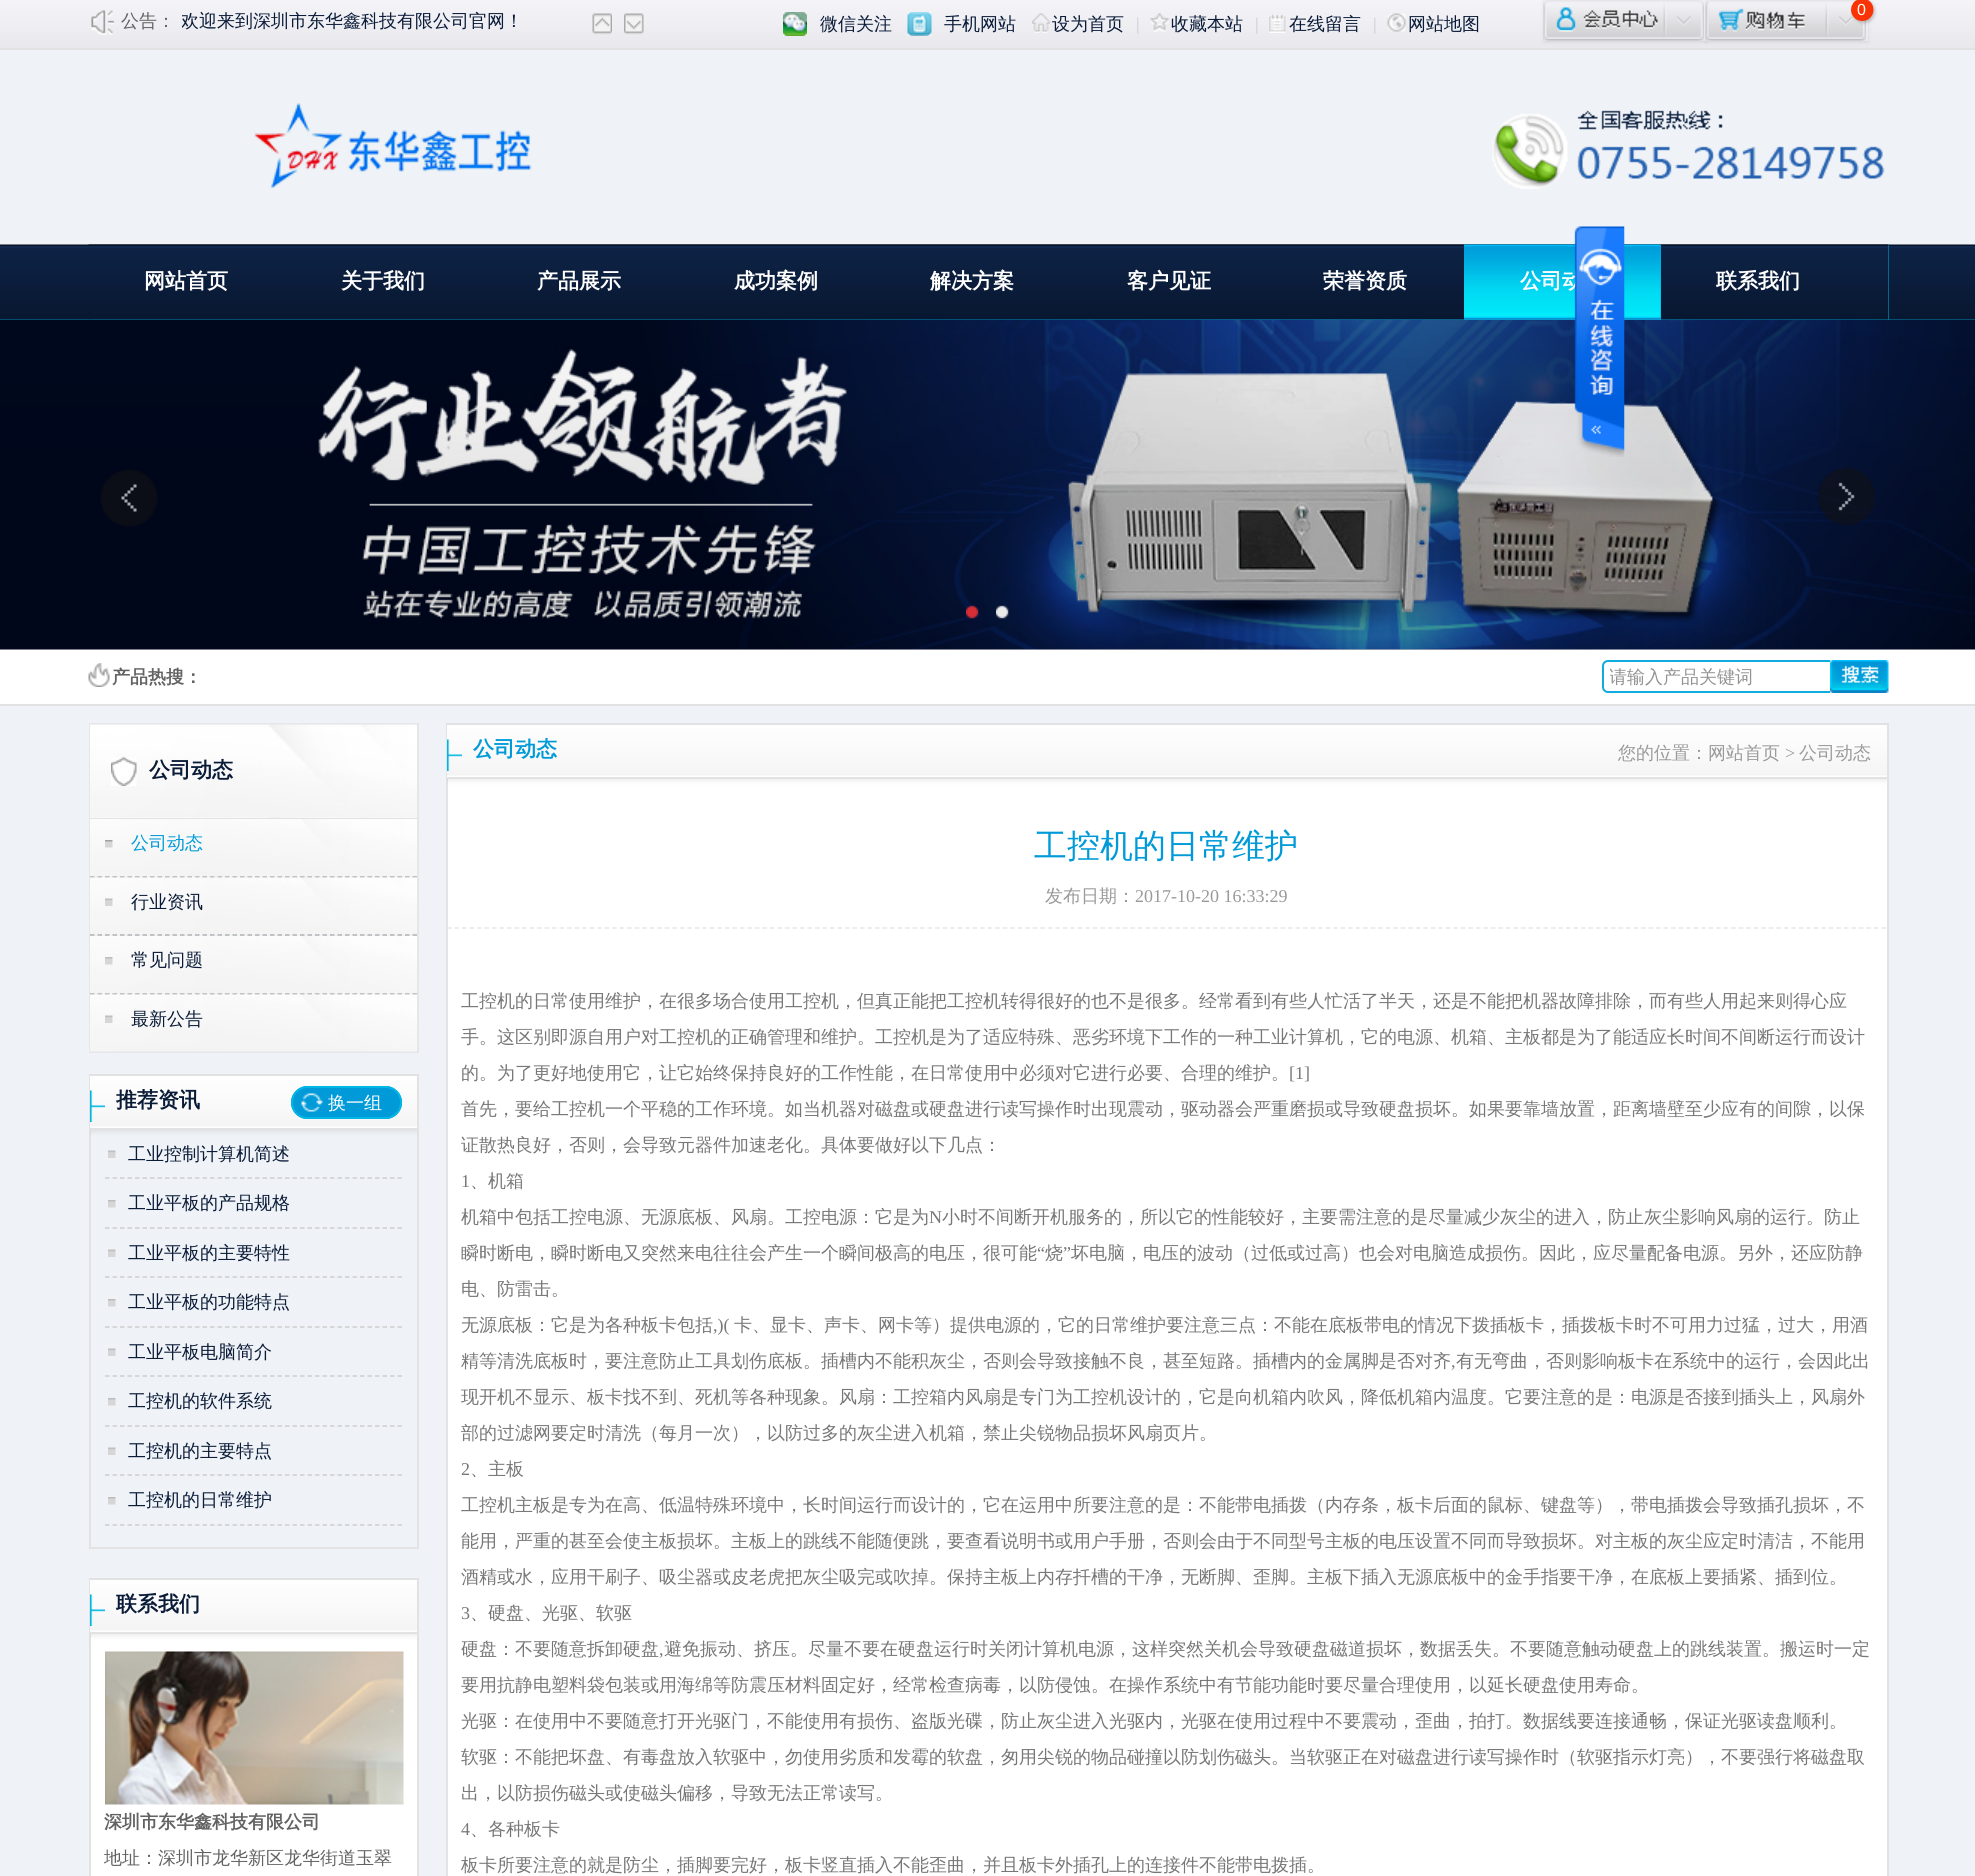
#include <cairo/cairo.h>
#include <math.h>
#include <stddef.h>

typedef struct { double x, y; const char *s; } line_t;
typedef struct { double x, y, w, h; unsigned color; } box_t;
static cairo_t *cr;

static void rgb(unsigned color)
{
	cairo_set_source_rgb(cr, (color >> 16) / 255.0, (color >> 8 & 255) / 255.0, (color & 255) / 255.0);
}

static void rrect(double x, double y, double w, double h, double r)
{
	cairo_new_sub_path(cr);
	cairo_arc(cr, x + w - r, y + h - r, r, 0, M_PI / 2);
	cairo_arc(cr, x + r, y + h - r, r, M_PI / 2, M_PI);
	cairo_arc(cr, x + r, y + r, r, M_PI, 1.5 * M_PI);
	cairo_arc(cr, x + w - r, y + r, r, 1.5 * M_PI, 2 * M_PI);
	cairo_close_path(cr);
}

static void soft_shadow(double x, double y, double w, double h, double r, double blur, double alpha)
{
	cairo_push_group_with_content(cr, CAIRO_CONTENT_ALPHA);
	cairo_set_operator(cr, CAIRO_OPERATOR_SOURCE);
	for (int i = 15; i >= -15 && fmin(w, h) + blur * i / 3 > 0; i -= 2) {
		double e = blur * i / 6;
		cairo_set_source_rgba(cr, 0, 0, 0, alpha * erfc((i - 1) / 8.5) / 2);
		rrect(x - e, y - e, w + 2 * e, h + 2 * e, fmax(0, fmin(r + e + blur * .6, fmin(w, h) / 2 + e)));
		cairo_fill(cr);
	}
	cairo_pattern_t *soft = cairo_pop_group(cr);
	cairo_mask(cr, soft);
	cairo_pattern_destroy(soft);
}

static void image(const char *path, double x, double y, double w, double h)
{
	cairo_surface_t *image = cairo_image_surface_create_from_png(path);
	cairo_save(cr);
	cairo_set_source_surface(cr, image, x, y);
	cairo_rectangle(cr, x, y, w, h);
	cairo_fill(cr);
	cairo_restore(cr);
	cairo_surface_destroy(image);
}

int main(void) {
	cairo_surface_t *surface = cairo_image_surface_create(CAIRO_FORMAT_RGB24, 1975, 1876);
	cr = cairo_create(surface);
	cairo_font_options_t *options = cairo_font_options_create();
	cairo_font_options_set_hint_metrics(options, CAIRO_HINT_METRICS_OFF);
	cairo_font_options_set_hint_style(options, CAIRO_HINT_STYLE_NONE);
	cairo_set_font_options(cr, options);
	cairo_set_miter_limit(cr, 4);
	rgb(0xeff2f6);
	cairo_paint(cr);
	image("img/1.png", 0, 0, 1975, 48);
	rgb(0xe2e2e2);
	cairo_rectangle(cr, 0, 48, 1975, 2);
	cairo_fill(cr);
	image("img/2.png", 91, 10, 23, 25);
	image("img/3.png", 592, 13, 20, 22);
	image("img/4.png", 624, 13, 20, 22);
	image("img/6.png", 1705, 0, 161, 41);
	cairo_save(cr);
	cairo_set_fill_rule(cr, CAIRO_FILL_RULE_EVEN_ODD);
	cairo_new_path(cr);
	cairo_move_to(cr, 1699, 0);
	cairo_line_to(cr, 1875, 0);
	cairo_line_to(cr, 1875, 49);
	cairo_line_to(cr, 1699, 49);
	cairo_close_path(cr);
	cairo_move_to(cr, 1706, 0);
	cairo_line_to(cr, 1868, 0);
	cairo_line_to(cr, 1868, 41);
	cairo_line_to(cr, 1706, 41);
	cairo_close_path(cr);
	cairo_clip(cr);
	rgb(0x000000);
	soft_shadow(1706, 2, 162, 40, 0, 2, 0.1);
	cairo_restore(cr);
	image("img/5.png", 1543, 0, 161, 41);
	cairo_save(cr);
	cairo_set_fill_rule(cr, CAIRO_FILL_RULE_EVEN_ODD);
	cairo_new_path(cr);
	cairo_move_to(cr, 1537, 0);
	cairo_line_to(cr, 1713, 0);
	cairo_line_to(cr, 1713, 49);
	cairo_line_to(cr, 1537, 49);
	cairo_close_path(cr);
	cairo_move_to(cr, 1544, 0);
	cairo_line_to(cr, 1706, 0);
	cairo_line_to(cr, 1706, 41);
	cairo_line_to(cr, 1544, 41);
	cairo_close_path(cr);
	cairo_clip(cr);
	rgb(0x000000);
	soft_shadow(1544, 2, 162, 40, 0, 2, 0.1);
	cairo_restore(cr);
	rgb(0x000000);
	soft_shadow(1853, 0, 22, 23, 11, 1.5, 0.2);
	image("img/7.png", 1851, 0, 23, 21);
	image("img/8.png", 783, 12, 24, 24);
	image("img/9.png", 907, 12, 25, 24);
	image("img/10.png", 1032, 13, 19, 20);
	image("img/11.png", 1150, 13, 19, 19);
	image("img/12.png", 1269, 14, 17, 19);
	image("img/13.png", 1387, 13, 19, 19);
	image("img/14.png", 254, 103, 278, 86);
	image("img/15.png", 1492, 110, 393, 79);
	rgb(0x00aee1);
	cairo_rectangle(cr, 0, 319, 1975, 1);
	cairo_fill(cr);
	image("img/16.png", 0, 244, 1975, 76);
	cairo_rectangle(cr, 89, 245, 1800, 75);
	cairo_fill(cr);
	image("img/17.png", 88, 244, 1801, 76);
	rgb(0xabaab4);
	cairo_rectangle(cr, 0, 649, 1975, 1);
	cairo_fill(cr);
	image("img/19.png", 0, 319, 1975, 331);
	rgb(0x00aee1);
	cairo_rectangle(cr, 1464, 245, 197, 75);
	cairo_fill(cr);
	image("img/18.png", 1464, 244, 197, 76);
	image("img/20.png", 100, 469, 58, 58);
	image("img/21.png", 1818, 468, 57, 57);
	image("img/22.png", 966, 605, 13, 14);
	image("img/23.png", 996, 605, 13, 14);
	rgb(0xffffff);
	cairo_rectangle(cr, 0, 650, 1975, 54);
	cairo_fill(cr);
	rgb(0xe2e2e2);
	cairo_rectangle(cr, 0, 704, 1975, 2);
	cairo_fill(cr);
	image("img/24.png", 88, 663, 22, 24);
	rrect(1603, 661, 280, 31, 5);
	rgb(0x10abdf);
	cairo_stroke(cr);
	image("img/25.png", 1830, 660, 59, 33);
	cairo_rectangle(cr, 90, 724, 328, 328);
	rgb(0xe5e6e8);
	cairo_stroke(cr);
	image("img/26.png", 90, 724, 327, 94);
	rgb(0xe2e2e2);
	cairo_rectangle(cr, 90, 818, 327, 1);
	cairo_fill(cr);
	image("img/27.png", 111, 757, 26, 29);
	image("img/28.png", 90, 819, 327, 57);
	cairo_new_path(cr);
	cairo_move_to(cr, 90, 877);
	cairo_line_to(cr, 417, 877);
	rgb(0xb2b2b2);
	cairo_set_line_width(cr, 1.5);
	cairo_set_dash(cr, (double[]){4.5, 3}, 2, 0);
	cairo_stroke(cr);
	image("img/29.png", 105, 840, 8, 8);
	image("img/30.png", 90, 877, 327, 58);
	cairo_new_path(cr);
	cairo_move_to(cr, 90, 935);
	cairo_line_to(cr, 417, 935);
	cairo_stroke(cr);
	image("img/31.png", 105, 898, 8, 8);
	image("img/28.png", 90, 936, 327, 57);
	cairo_new_path(cr);
	cairo_move_to(cr, 90, 994);
	cairo_line_to(cr, 417, 994);
	cairo_stroke(cr);
	image("img/32.png", 105, 957, 8, 8);
	image("img/33.png", 90, 994, 327, 58);
	image("img/31.png", 105, 1015, 8, 8);
	{
		static const box_t items[] = {
			{417, 1074, 2, 474, 0xe2e2e2},
			{89, 1547, 330, 2, 0xe2e2e2},
			{89, 1074, 2, 474, 0xe2e2e2},
		};
		for (size_t i = 0; i < sizeof items / sizeof *items; i++) {
			rgb(items[i].color);
			cairo_rectangle(cr, items[i].x, items[i].y, items[i].w, items[i].h);
			cairo_fill(cr);
		}
	}
	cairo_save(cr);
	cairo_rectangle(cr, 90, 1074, 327, 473);
	cairo_clip(cr);
	rgb(0x000000);
	soft_shadow(90, 1076, 327, 55, 0, 3, 0.1);
	cairo_restore(cr);
	image("img/34.png", 90, 1076, 327, 52);
	cairo_rectangle(cr, 90, 1074, 327, 2);
	cairo_fill(cr);
	cairo_rectangle(cr, 90, 1128, 327, 2);
	cairo_fill(cr);
	image("img/35.png", 90, 1090, 15, 32);
	rgb(0x009ad8);
	rrect(291, 1086, 111, 33, 16.5);
	cairo_fill(cr);
	image("img/36.png", 301, 1093, 22, 19);
	rrect(292, 1087, 109, 31, 15.5);
	rgb(0x00b6e4);
	cairo_set_line_width(cr, 2);
	cairo_set_dash(cr, NULL, 0, 0);
	cairo_stroke(cr);
	image("img/37.png", 108, 1150, 8, 8);
	cairo_new_path(cr);
	cairo_move_to(cr, 105, 1178);
	cairo_line_to(cr, 402, 1178);
	rgb(0xcecece);
	cairo_set_line_width(cr, 1.5);
	cairo_set_dash(cr, (double[]){4.5, 3}, 2, 0);
	cairo_stroke(cr);
	image("img/38.png", 108, 1200, 8, 8);
	cairo_new_path(cr);
	cairo_move_to(cr, 105, 1228);
	cairo_line_to(cr, 402, 1228);
	cairo_stroke(cr);
	image("img/37.png", 108, 1249, 8, 8);
	cairo_new_path(cr);
	cairo_move_to(cr, 105, 1277);
	cairo_line_to(cr, 402, 1277);
	cairo_stroke(cr);
	image("img/38.png", 108, 1299, 8, 8);
	cairo_new_path(cr);
	cairo_move_to(cr, 105, 1327);
	cairo_line_to(cr, 402, 1327);
	cairo_stroke(cr);
	image("img/37.png", 108, 1348, 8, 8);
	cairo_new_path(cr);
	cairo_move_to(cr, 105, 1376);
	cairo_line_to(cr, 402, 1376);
	cairo_stroke(cr);
	image("img/38.png", 108, 1398, 8, 8);
	cairo_new_path(cr);
	cairo_move_to(cr, 105, 1426);
	cairo_line_to(cr, 402, 1426);
	cairo_stroke(cr);
	image("img/37.png", 108, 1447, 8, 8);
	cairo_new_path(cr);
	cairo_move_to(cr, 105, 1475);
	cairo_line_to(cr, 402, 1475);
	cairo_stroke(cr);
	image("img/38.png", 108, 1497, 8, 8);
	cairo_new_path(cr);
	cairo_move_to(cr, 105, 1525);
	cairo_line_to(cr, 402, 1525);
	cairo_stroke(cr);
	{
		static const box_t items[] = {
			{91, 1634, 326, 242, 0xffffff},
			{417, 1578, 2, 298, 0xe2e2e2},
			{89, 1578, 2, 298, 0xe2e2e2},
		};
		for (size_t i = 0; i < sizeof items / sizeof *items; i++) {
			rgb(items[i].color);
			cairo_rectangle(cr, items[i].x, items[i].y, items[i].w, items[i].h);
			cairo_fill(cr);
		}
	}
	cairo_save(cr);
	cairo_rectangle(cr, 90, 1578, 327, 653);
	cairo_clip(cr);
	rgb(0x000000);
	soft_shadow(90, 1580, 327, 55, 0, 3, 0.1);
	cairo_restore(cr);
	image("img/34.png", 90, 1580, 327, 52);
	cairo_rectangle(cr, 90, 1578, 327, 2);
	cairo_fill(cr);
	cairo_rectangle(cr, 90, 1632, 327, 2);
	cairo_fill(cr);
	image("img/35.png", 90, 1594, 15, 32);
	image("img/39.png", 105, 1651, 299, 154);
	{
		static const box_t items[] = {
			{448, 779, 1439, 1097, 0xffffff},
			{1887, 723, 2, 1153, 0xe2e2e2},
			{446, 723, 2, 1153, 0xe2e2e2},
		};
		for (size_t i = 0; i < sizeof items / sizeof *items; i++) {
			rgb(items[i].color);
			cairo_rectangle(cr, items[i].x, items[i].y, items[i].w, items[i].h);
			cairo_fill(cr);
		}
	}
	cairo_save(cr);
	cairo_rectangle(cr, 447, 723, 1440, 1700);
	cairo_clip(cr);
	rgb(0x000000);
	soft_shadow(447, 725, 1440, 55, 0, 3, 0.1);
	cairo_restore(cr);
	image("img/40.png", 447, 725, 1440, 52);
	cairo_rectangle(cr, 447, 723, 1440, 2);
	cairo_fill(cr);
	cairo_rectangle(cr, 447, 777, 1440, 2);
	cairo_fill(cr);
	image("img/35.png", 447, 739, 15, 32);
	cairo_new_path(cr);
	cairo_move_to(cr, 447, 928);
	cairo_line_to(cr, 1887, 928);
	rgb(0xe7e7e7);
	cairo_set_dash(cr, (double[]){4.5, 3.01}, 2, 0);
	cairo_stroke(cr);
	cairo_select_font_face(cr, "WenQuanYi Zen Hei Medium", CAIRO_FONT_SLANT_NORMAL, CAIRO_FONT_WEIGHT_NORMAL);
	cairo_set_font_size(cr, 18);
	rgb(0x626262);
	cairo_move_to(cr, 121, 27);
	cairo_show_text(cr, "公告：");
	cairo_save(cr);
	cairo_rectangle(cr, 182, 9, 390, 24);
	cairo_clip(cr);
	rgb(0x0a1b38);
	cairo_move_to(cr, 181, 27);
	cairo_show_text(cr, "欢迎来到深圳市东华鑫科技有限公司官网！");
	cairo_restore(cr);
	cairo_select_font_face(cr, "Liberation Sans", CAIRO_FONT_SLANT_NORMAL, CAIRO_FONT_WEIGHT_NORMAL);
	cairo_set_font_size(cr, 16);
	rgb(0xffffff);
	cairo_move_to(cr, 1857, 15);
	cairo_show_text(cr, "0");
	cairo_select_font_face(cr, "WenQuanYi Zen Hei Medium", CAIRO_FONT_SLANT_NORMAL, CAIRO_FONT_WEIGHT_NORMAL);
	cairo_set_font_size(cr, 18);
	rgb(0x0a1b38);
	{
		static const line_t items[] = {
			{820, 30, "微信关注"},
			{944, 30, "手机网站"},
			{1052, 30, "设为首页"},
		};
		for (size_t i = 0; i < sizeof items / sizeof *items; i++) {
			cairo_move_to(cr, items[i].x, items[i].y);
			cairo_show_text(cr, items[i].s);
		}
	}
	cairo_select_font_face(cr, "Liberation Serif", CAIRO_FONT_SLANT_NORMAL, CAIRO_FONT_WEIGHT_NORMAL);
	rgb(0xcccccc);
	cairo_move_to(cr, 1136, 30);
	cairo_show_text(cr, "|");
	cairo_select_font_face(cr, "WenQuanYi Zen Hei Medium", CAIRO_FONT_SLANT_NORMAL, CAIRO_FONT_WEIGHT_NORMAL);
	rgb(0x0a1b38);
	cairo_move_to(cr, 1171, 30);
	cairo_show_text(cr, "收藏本站");
	cairo_select_font_face(cr, "Liberation Serif", CAIRO_FONT_SLANT_NORMAL, CAIRO_FONT_WEIGHT_NORMAL);
	rgb(0xcccccc);
	cairo_move_to(cr, 1255, 30);
	cairo_show_text(cr, "|");
	cairo_select_font_face(cr, "WenQuanYi Zen Hei Medium", CAIRO_FONT_SLANT_NORMAL, CAIRO_FONT_WEIGHT_NORMAL);
	rgb(0x0a1b38);
	cairo_move_to(cr, 1289, 30);
	cairo_show_text(cr, "在线留言");
	cairo_select_font_face(cr, "Liberation Serif", CAIRO_FONT_SLANT_NORMAL, CAIRO_FONT_WEIGHT_NORMAL);
	rgb(0xcccccc);
	cairo_move_to(cr, 1373, 30);
	cairo_show_text(cr, "|");
	cairo_select_font_face(cr, "WenQuanYi Zen Hei Medium", CAIRO_FONT_SLANT_NORMAL, CAIRO_FONT_WEIGHT_NORMAL);
	rgb(0x0a1b38);
	cairo_move_to(cr, 1408, 30);
	cairo_show_text(cr, "网站地图");
	cairo_select_font_face(cr, "WenQuanYi Zen Hei", CAIRO_FONT_SLANT_NORMAL, CAIRO_FONT_WEIGHT_BOLD);
	cairo_set_font_size(cr, 21);
	rgb(0xffffff);
	{
		static const line_t items[] = {
			{144, 288, "网站首页"},
			{341, 288, "关于我们"},
			{537, 288, "产品展示"},
			{734, 288, "成功案例"},
			{930, 288, "解决方案"},
			{1127, 288, "客户见证"},
			{1323, 288, "荣誉资质"},
			{1520, 288, "公司动"},
			{1716, 288, "联系我们"},
		};
		for (size_t i = 0; i < sizeof items / sizeof *items; i++) {
			cairo_move_to(cr, items[i].x, items[i].y);
			cairo_show_text(cr, items[i].s);
		}
	}
	cairo_set_font_size(cr, 18);
	rgb(0x626262);
	cairo_move_to(cr, 112, 683);
	cairo_show_text(cr, "产品热搜：");
	cairo_save(cr);
	cairo_rectangle(cr, 1610, 663, 270, 27);
	cairo_clip(cr);
	cairo_select_font_face(cr, "WenQuanYi Zen Hei Medium", CAIRO_FONT_SLANT_NORMAL, CAIRO_FONT_WEIGHT_NORMAL);
	rgb(0x939393);
	cairo_move_to(cr, 1609, 683);
	cairo_show_text(cr, "请输入产品关键词");
	cairo_restore(cr);
	cairo_set_font_size(cr, 21);
	rgb(0x0a1b38);
	cairo_move_to(cr, 149, 777);
	cairo_show_text(cr, "公司动态");
	cairo_select_font_face(cr, "WenQuanYi Zen Hei Medium", CAIRO_FONT_SLANT_NORMAL, CAIRO_FONT_WEIGHT_NORMAL);
	cairo_set_font_size(cr, 18);
	rgb(0x009ad8);
	cairo_move_to(cr, 131, 849);
	cairo_show_text(cr, "公司动态");
	rgb(0x0a1b38);
	{
		static const line_t items[] = {
			{131, 908, "行业资讯"},
			{131, 966, "常见问题"},
			{131, 1025, "最新公告"},
		};
		for (size_t i = 0; i < sizeof items / sizeof *items; i++) {
			cairo_move_to(cr, items[i].x, items[i].y);
			cairo_show_text(cr, items[i].s);
		}
	}
	cairo_select_font_face(cr, "WenQuanYi Zen Hei", CAIRO_FONT_SLANT_NORMAL, CAIRO_FONT_WEIGHT_BOLD);
	cairo_set_font_size(cr, 21);
	cairo_move_to(cr, 116, 1107);
	cairo_show_text(cr, "推荐资讯");
	cairo_select_font_face(cr, "WenQuanYi Zen Hei Medium", CAIRO_FONT_SLANT_NORMAL, CAIRO_FONT_WEIGHT_NORMAL);
	cairo_set_font_size(cr, 18);
	rgb(0xffffff);
	cairo_move_to(cr, 328, 1109);
	cairo_show_text(cr, "换一组");
	rgb(0x0a1b38);
	{
		static const line_t items[] = {
			{128, 1160, "工业控制计算机简述"},
			{128, 1209, "工业平板的产品规格"},
			{128, 1259, "工业平板的主要特性"},
			{128, 1308, "工业平板的功能特点"},
			{128, 1358, "工业平板电脑简介"},
			{128, 1407, "工控机的软件系统"},
			{128, 1457, "工控机的主要特点"},
			{128, 1506, "工控机的日常维护"},
		};
		for (size_t i = 0; i < sizeof items / sizeof *items; i++) {
			cairo_move_to(cr, items[i].x, items[i].y);
			cairo_show_text(cr, items[i].s);
		}
	}
	cairo_select_font_face(cr, "WenQuanYi Zen Hei", CAIRO_FONT_SLANT_NORMAL, CAIRO_FONT_WEIGHT_BOLD);
	cairo_set_font_size(cr, 21);
	cairo_move_to(cr, 116, 1611);
	cairo_show_text(cr, "联系我们");
	cairo_set_font_size(cr, 18);
	rgb(0x626262);
	cairo_move_to(cr, 104, 1828);
	cairo_show_text(cr, "深圳市东华鑫科技有限公司");
	cairo_select_font_face(cr, "WenQuanYi Zen Hei Medium", CAIRO_FONT_SLANT_NORMAL, CAIRO_FONT_WEIGHT_NORMAL);
	cairo_move_to(cr, 104, 1864);
	cairo_show_text(cr, "地址：深圳市龙华新区龙华街道玉翠");
	cairo_select_font_face(cr, "WenQuanYi Zen Hei", CAIRO_FONT_SLANT_NORMAL, CAIRO_FONT_WEIGHT_BOLD);
	cairo_set_font_size(cr, 21);
	rgb(0x009ad8);
	cairo_move_to(cr, 473, 756);
	cairo_show_text(cr, "公司动态");
	cairo_select_font_face(cr, "WenQuanYi Zen Hei Medium", CAIRO_FONT_SLANT_NORMAL, CAIRO_FONT_WEIGHT_NORMAL);
	cairo_set_font_size(cr, 18);
	rgb(0x999999);
	cairo_move_to(cr, 1618, 759);
	cairo_show_text(cr, "您的位置：网站首页");
	cairo_select_font_face(cr, "Liberation Serif", CAIRO_FONT_SLANT_NORMAL, CAIRO_FONT_WEIGHT_NORMAL);
	cairo_move_to(cr, 1785, 759);
	cairo_show_text(cr, ">");
	cairo_select_font_face(cr, "WenQuanYi Zen Hei Medium", CAIRO_FONT_SLANT_NORMAL, CAIRO_FONT_WEIGHT_NORMAL);
	cairo_move_to(cr, 1799, 759);
	cairo_show_text(cr, "公司动态");
	cairo_set_font_size(cr, 33);
	rgb(0x009ad8);
	cairo_move_to(cr, 1034, 857);
	cairo_show_text(cr, "工控机的日常维护");
	cairo_set_font_size(cr, 18);
	rgb(0x999999);
	cairo_move_to(cr, 1045, 902);
	cairo_show_text(cr, "发布日期：");
	cairo_select_font_face(cr, "Liberation Serif", CAIRO_FONT_SLANT_NORMAL, CAIRO_FONT_WEIGHT_NORMAL);
	cairo_move_to(cr, 1135, 902);
	cairo_show_text(cr, "2017-10-20 16:33:29");
	cairo_select_font_face(cr, "WenQuanYi Zen Hei Medium", CAIRO_FONT_SLANT_NORMAL, CAIRO_FONT_WEIGHT_NORMAL);
	rgb(0x777777);
	{
		static const line_t items[] = {
			{461, 1007, "工控机的日常使用维护，在很多场合使用工控机，但真正能把工控机转得很好的也不是很多。经常看到有些人忙活了半天，还是不能把机器故障排除，而有些人用起来则得心应"},
			{461, 1043, "手。这区别即源自用户对工控机的正确管理和维护。工控机是为了适应特殊、恶劣环境下工作的一种工业计算机，它的电源、机箱、主板都是为了能适应长时间不间断运行而设计"},
			{461, 1079, "的。为了更好地使用它，让它始终保持良好的工作性能，在日常使用中必须对它进行必要、合理的维护。"},
		};
		for (size_t i = 0; i < sizeof items / sizeof *items; i++) {
			cairo_move_to(cr, items[i].x, items[i].y);
			cairo_show_text(cr, items[i].s);
		}
	}
	cairo_select_font_face(cr, "Liberation Serif", CAIRO_FONT_SLANT_NORMAL, CAIRO_FONT_WEIGHT_NORMAL);
	cairo_move_to(cr, 1289, 1079);
	cairo_show_text(cr, "[1]");
	cairo_select_font_face(cr, "WenQuanYi Zen Hei Medium", CAIRO_FONT_SLANT_NORMAL, CAIRO_FONT_WEIGHT_NORMAL);
	cairo_move_to(cr, 461, 1115);
	cairo_show_text(cr, "首先，要给工控机一个平稳的工作环境。如当机器对磁盘或硬盘进行读写操作时出现震动，驱动器会严重磨损或导致硬盘损坏。如果要靠墙放置，距离墙壁至少应有的间隙，以保");
	cairo_move_to(cr, 461, 1151);
	cairo_show_text(cr, "证散热良好，否则，会导致元器件加速老化。具体要做好以下几点：");
	cairo_select_font_face(cr, "Liberation Serif", CAIRO_FONT_SLANT_NORMAL, CAIRO_FONT_WEIGHT_NORMAL);
	cairo_move_to(cr, 461, 1187);
	cairo_show_text(cr, "1");
	cairo_select_font_face(cr, "WenQuanYi Zen Hei Medium", CAIRO_FONT_SLANT_NORMAL, CAIRO_FONT_WEIGHT_NORMAL);
	cairo_move_to(cr, 470, 1187);
	cairo_show_text(cr, "、机箱");
	cairo_move_to(cr, 461, 1223);
	cairo_show_text(cr, "机箱中包括工控电源、无源底板、风扇。工控电源：它是为");
	cairo_select_font_face(cr, "Liberation Serif", CAIRO_FONT_SLANT_NORMAL, CAIRO_FONT_WEIGHT_NORMAL);
	cairo_move_to(cr, 929, 1223);
	cairo_show_text(cr, "N");
	cairo_select_font_face(cr, "WenQuanYi Zen Hei Medium", CAIRO_FONT_SLANT_NORMAL, CAIRO_FONT_WEIGHT_NORMAL);
	cairo_move_to(cr, 942, 1223);
	cairo_show_text(cr, "小时不间断开机服务的，所以它的性能较好，主要需注意的是尽量减少灰尘的进入，防止灰尘影响风扇的运行。防止");
	cairo_move_to(cr, 461, 1259);
	cairo_show_text(cr, "瞬时断电，瞬时断电又突然来电往往会产生一个瞬间极高的电压，很可能");
	cairo_select_font_face(cr, "Liberation Serif", CAIRO_FONT_SLANT_NORMAL, CAIRO_FONT_WEIGHT_NORMAL);
	cairo_move_to(cr, 1037, 1259);
	cairo_show_text(cr, "“");
	cairo_select_font_face(cr, "WenQuanYi Zen Hei Medium", CAIRO_FONT_SLANT_NORMAL, CAIRO_FONT_WEIGHT_NORMAL);
	cairo_move_to(cr, 1045, 1259);
	cairo_show_text(cr, "烧");
	cairo_select_font_face(cr, "Liberation Serif", CAIRO_FONT_SLANT_NORMAL, CAIRO_FONT_WEIGHT_NORMAL);
	cairo_move_to(cr, 1063, 1259);
	cairo_show_text(cr, "”");
	cairo_select_font_face(cr, "WenQuanYi Zen Hei Medium", CAIRO_FONT_SLANT_NORMAL, CAIRO_FONT_WEIGHT_NORMAL);
	{
		static const line_t items[] = {
			{1071, 1259, "坏电脑，电压的波动（过低或过高）也会对电脑造成损伤。因此，应尽量配备电源。另外，还应防静"},
			{461, 1295, "电、防雷击。"},
			{461, 1331, "无源底板：它是为各种板卡包括"},
		};
		for (size_t i = 0; i < sizeof items / sizeof *items; i++) {
			cairo_move_to(cr, items[i].x, items[i].y);
			cairo_show_text(cr, items[i].s);
		}
	}
	cairo_select_font_face(cr, "Liberation Serif", CAIRO_FONT_SLANT_NORMAL, CAIRO_FONT_WEIGHT_NORMAL);
	cairo_move_to(cr, 713, 1331);
	cairo_show_text(cr, ",)(");
	cairo_select_font_face(cr, "WenQuanYi Zen Hei Medium", CAIRO_FONT_SLANT_NORMAL, CAIRO_FONT_WEIGHT_NORMAL);
	cairo_move_to(cr, 734, 1331);
	cairo_show_text(cr, "卡、显卡、声卡、网卡等）提供电源的，它的日常维护要注意三点：不能在底板带电的情况下拨插板卡，插拨板卡时不可用力过猛，过大，用酒");
	cairo_move_to(cr, 461, 1367);
	cairo_show_text(cr, "精等清洗底板时，要注意防止工具划伤底板。插槽内不能积灰尘，否则会导致接触不良，甚至短路。插槽内的金属脚是否对齐");
	cairo_select_font_face(cr, "Liberation Serif", CAIRO_FONT_SLANT_NORMAL, CAIRO_FONT_WEIGHT_NORMAL);
	cairo_move_to(cr, 1451, 1367);
	cairo_show_text(cr, ",");
	cairo_select_font_face(cr, "WenQuanYi Zen Hei Medium", CAIRO_FONT_SLANT_NORMAL, CAIRO_FONT_WEIGHT_NORMAL);
	{
		static const line_t items[] = {
			{1456, 1367, "有无弯曲，否则影响板卡在系统中的运行，会因此出"},
			{461, 1403, "现开机不显示、板卡找不到、死机等各种现象。风扇：工控箱内风扇是专门为工控机设计的，它是向机箱内吹风，降低机箱内温度。它要注意的是：电源是否接到插头上，风扇外"},
			{461, 1439, "部的过滤网要定时清洗（每月一次），以防过多的灰尘进入机箱，禁止尖锐物品损坏风扇页片。"},
		};
		for (size_t i = 0; i < sizeof items / sizeof *items; i++) {
			cairo_move_to(cr, items[i].x, items[i].y);
			cairo_show_text(cr, items[i].s);
		}
	}
	cairo_select_font_face(cr, "Liberation Serif", CAIRO_FONT_SLANT_NORMAL, CAIRO_FONT_WEIGHT_NORMAL);
	cairo_move_to(cr, 461, 1475);
	cairo_show_text(cr, "2");
	cairo_select_font_face(cr, "WenQuanYi Zen Hei Medium", CAIRO_FONT_SLANT_NORMAL, CAIRO_FONT_WEIGHT_NORMAL);
	{
		static const line_t items[] = {
			{470, 1475, "、主板"},
			{461, 1511, "工控机主板是专为在高、低温特殊环境中，长时间运行而设计的，它在运用中所要注意的是：不能带电插拨（内存条，板卡后面的鼠标、键盘等），带电插拨会导致插孔损坏，不"},
			{461, 1547, "能用，严重的甚至会使主板损坏。主板上的跳线不能随便跳，要查看说明书或用户手册，否则会由于不同型号主板的电压设置不同而导致损坏。对主板的灰尘应定时清洁，不能用"},
			{461, 1583, "酒精或水，应用干刷子、吸尘器或皮老虎把灰尘吸完或吹掉。保持主板上内存扦槽的干净，无断脚、歪脚。主板下插入无源底板中的金手指要干净，在底板上要插紧、插到位。"},
		};
		for (size_t i = 0; i < sizeof items / sizeof *items; i++) {
			cairo_move_to(cr, items[i].x, items[i].y);
			cairo_show_text(cr, items[i].s);
		}
	}
	cairo_select_font_face(cr, "Liberation Serif", CAIRO_FONT_SLANT_NORMAL, CAIRO_FONT_WEIGHT_NORMAL);
	cairo_move_to(cr, 461, 1619);
	cairo_show_text(cr, "3");
	cairo_select_font_face(cr, "WenQuanYi Zen Hei Medium", CAIRO_FONT_SLANT_NORMAL, CAIRO_FONT_WEIGHT_NORMAL);
	cairo_move_to(cr, 470, 1619);
	cairo_show_text(cr, "、硬盘、光驱、软驱");
	cairo_move_to(cr, 461, 1655);
	cairo_show_text(cr, "硬盘：不要随意拆卸硬盘");
	cairo_select_font_face(cr, "Liberation Serif", CAIRO_FONT_SLANT_NORMAL, CAIRO_FONT_WEIGHT_NORMAL);
	cairo_move_to(cr, 659, 1655);
	cairo_show_text(cr, ",");
	cairo_select_font_face(cr, "WenQuanYi Zen Hei Medium", CAIRO_FONT_SLANT_NORMAL, CAIRO_FONT_WEIGHT_NORMAL);
	{
		static const line_t items[] = {
			{664, 1655, "避免振动、挤压。尽量不要在硬盘运行时关闭计算机电源，这样突然关机会导致硬盘磁道损坏，数据丢失。不要随意触动硬盘上的跳线装置。搬运时一定"},
			{461, 1691, "要用抗静电塑料袋包装或用海绵等防震压材料固定好，经常检查病毒，以防侵蚀。在操作系统中有节能功能时要尽量合理使用，以延长硬盘使用寿命。"},
			{461, 1727, "光驱：在使用中不要随意打开光驱门，不能使用有损伤、盗版光碟，防止灰尘进入光驱内，光驱在使用过程中不要震动，歪曲，拍打。数据线要连接通畅，保证光驱读盘顺利。"},
			{461, 1763, "软驱：不能把坏盘、有毒盘放入软驱中，勿使用劣质和发霉的软盘，匆用尖锐的物品碰撞以防划伤磁头。当软驱正在对磁盘进行读写操作时（软驱指示灯亮），不要强行将磁盘取"},
			{461, 1799, "出，以防损伤磁头或使磁头偏移，导致无法正常读写。"},
		};
		for (size_t i = 0; i < sizeof items / sizeof *items; i++) {
			cairo_move_to(cr, items[i].x, items[i].y);
			cairo_show_text(cr, items[i].s);
		}
	}
	cairo_select_font_face(cr, "Liberation Serif", CAIRO_FONT_SLANT_NORMAL, CAIRO_FONT_WEIGHT_NORMAL);
	cairo_move_to(cr, 461, 1835);
	cairo_show_text(cr, "4");
	cairo_select_font_face(cr, "WenQuanYi Zen Hei Medium", CAIRO_FONT_SLANT_NORMAL, CAIRO_FONT_WEIGHT_NORMAL);
	cairo_move_to(cr, 470, 1835);
	cairo_show_text(cr, "、各种板卡");
	cairo_move_to(cr, 461, 1871);
	cairo_show_text(cr, "板卡所要注意的就是防尘，插脚要完好，板卡竖直插入不能歪曲，并且板卡外插孔上的连接件不能带电拨插。");
	image("img/41.png", 1574, 226, 51, 231);
	cairo_surface_write_to_png(surface, "page.png");
	cairo_font_options_destroy(options);
	cairo_destroy(cr);
	cairo_surface_destroy(surface);
	return 0;
}
